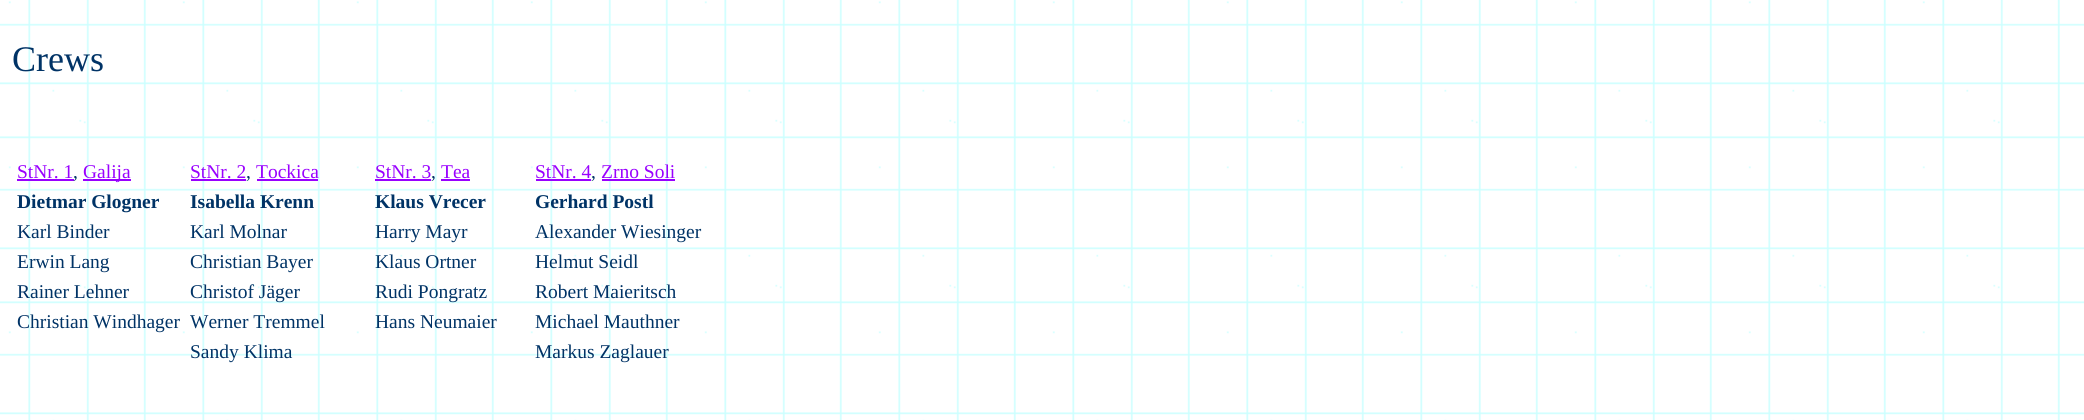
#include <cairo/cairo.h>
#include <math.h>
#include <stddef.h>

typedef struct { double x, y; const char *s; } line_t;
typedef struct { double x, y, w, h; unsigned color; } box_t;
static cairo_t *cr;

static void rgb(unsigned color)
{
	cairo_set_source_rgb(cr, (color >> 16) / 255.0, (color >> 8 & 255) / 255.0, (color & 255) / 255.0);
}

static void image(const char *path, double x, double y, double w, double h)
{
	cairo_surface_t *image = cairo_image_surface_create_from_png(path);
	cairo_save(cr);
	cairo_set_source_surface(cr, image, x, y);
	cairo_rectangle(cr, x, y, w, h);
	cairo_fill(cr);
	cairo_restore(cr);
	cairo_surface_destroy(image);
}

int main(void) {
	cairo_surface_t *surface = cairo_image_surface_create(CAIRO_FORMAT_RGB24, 2084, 420);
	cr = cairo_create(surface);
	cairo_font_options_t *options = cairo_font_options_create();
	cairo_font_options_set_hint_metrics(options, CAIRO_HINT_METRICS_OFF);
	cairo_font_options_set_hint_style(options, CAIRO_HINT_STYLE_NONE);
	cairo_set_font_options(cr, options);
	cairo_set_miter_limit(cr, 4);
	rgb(0xffffff);
	cairo_paint(cr);
	image("img/1.png", 0, 0, 2084, 420);
	{
		static const box_t items[] = {
			{17, 179, 57, 2, 0x9900ff},
			{83, 179, 48, 2, 0x9900ff},
			{191, 179, 55, 2, 0x9900ff},
			{257, 179, 61, 2, 0x9900ff},
			{375, 179, 56, 2, 0x9900ff},
			{441, 179, 29, 2, 0x9900ff},
			{536, 179, 55, 2, 0x9900ff},
			{602, 179, 73, 2, 0x9900ff},
		};
		for (size_t i = 0; i < sizeof items / sizeof *items; i++) {
			rgb(items[i].color);
			cairo_rectangle(cr, items[i].x, items[i].y, items[i].w, items[i].h);
			cairo_fill(cr);
		}
	}
	cairo_select_font_face(cr, "Liberation Serif", CAIRO_FONT_SLANT_NORMAL, CAIRO_FONT_WEIGHT_NORMAL);
	cairo_set_font_size(cr, 36);
	rgb(0x003366);
	cairo_move_to(cr, 12, 71);
	cairo_show_text(cr, "Crews");
	cairo_set_font_size(cr, 19.5);
	rgb(0x9900ff);
	cairo_move_to(cr, 17, 178);
	cairo_show_text(cr, "StNr. 1");
	rgb(0x003366);
	cairo_move_to(cr, 73, 178);
	cairo_show_text(cr, ",");
	rgb(0x9900ff);
	cairo_move_to(cr, 83, 178);
	cairo_show_text(cr, "Galija");
	cairo_move_to(cr, 190, 178);
	cairo_show_text(cr, "StNr. 2");
	rgb(0x003366);
	cairo_move_to(cr, 246, 178);
	cairo_show_text(cr, ",");
	rgb(0x9900ff);
	cairo_move_to(cr, 256, 178);
	cairo_show_text(cr, "Tockica");
	cairo_move_to(cr, 375, 178);
	cairo_show_text(cr, "StNr. 3");
	rgb(0x003366);
	cairo_move_to(cr, 431, 178);
	cairo_show_text(cr, ",");
	rgb(0x9900ff);
	cairo_move_to(cr, 441, 178);
	cairo_show_text(cr, "Tea");
	cairo_move_to(cr, 535, 178);
	cairo_show_text(cr, "StNr. 4");
	rgb(0x003366);
	cairo_move_to(cr, 591, 178);
	cairo_show_text(cr, ",");
	rgb(0x9900ff);
	cairo_move_to(cr, 601, 178);
	cairo_show_text(cr, "Zrno Soli");
	cairo_select_font_face(cr, "Liberation Serif", CAIRO_FONT_SLANT_NORMAL, CAIRO_FONT_WEIGHT_BOLD);
	rgb(0x003366);
	{
		static const line_t items[] = {
			{17, 208, "Dietmar Glogner"},
			{190, 208, "Isabella Krenn"},
			{375, 208, "Klaus Vrecer"},
			{535, 208, "Gerhard Postl"},
		};
		for (size_t i = 0; i < sizeof items / sizeof *items; i++) {
			cairo_move_to(cr, items[i].x, items[i].y);
			cairo_show_text(cr, items[i].s);
		}
	}
	cairo_select_font_face(cr, "Liberation Serif", CAIRO_FONT_SLANT_NORMAL, CAIRO_FONT_WEIGHT_NORMAL);
	{
		static const line_t items[] = {
			{17, 238, "Karl Binder"},
			{190, 238, "Karl Molnar"},
			{375, 238, "Harry Mayr"},
			{535, 238, "Alexander Wiesinger"},
			{17, 268, "Erwin Lang"},
			{190, 268, "Christian Bayer"},
			{375, 268, "Klaus Ortner"},
			{535, 268, "Helmut Seidl"},
			{17, 298, "Rainer Lehner"},
			{190, 298, "Christof Jäger"},
			{375, 298, "Rudi Pongratz"},
			{535, 298, "Robert Maieritsch"},
			{17, 328, "Christian Windhager"},
			{190, 328, "Werner Tremmel"},
			{375, 328, "Hans Neumaier"},
			{535, 328, "Michael Mauthner"},
			{190, 358, "Sandy Klima"},
			{535, 358, "Markus Zaglauer"},
		};
		for (size_t i = 0; i < sizeof items / sizeof *items; i++) {
			cairo_move_to(cr, items[i].x, items[i].y);
			cairo_show_text(cr, items[i].s);
		}
	}
	cairo_surface_write_to_png(surface, "page.png");
	cairo_font_options_destroy(options);
	cairo_destroy(cr);
	cairo_surface_destroy(surface);
	return 0;
}
